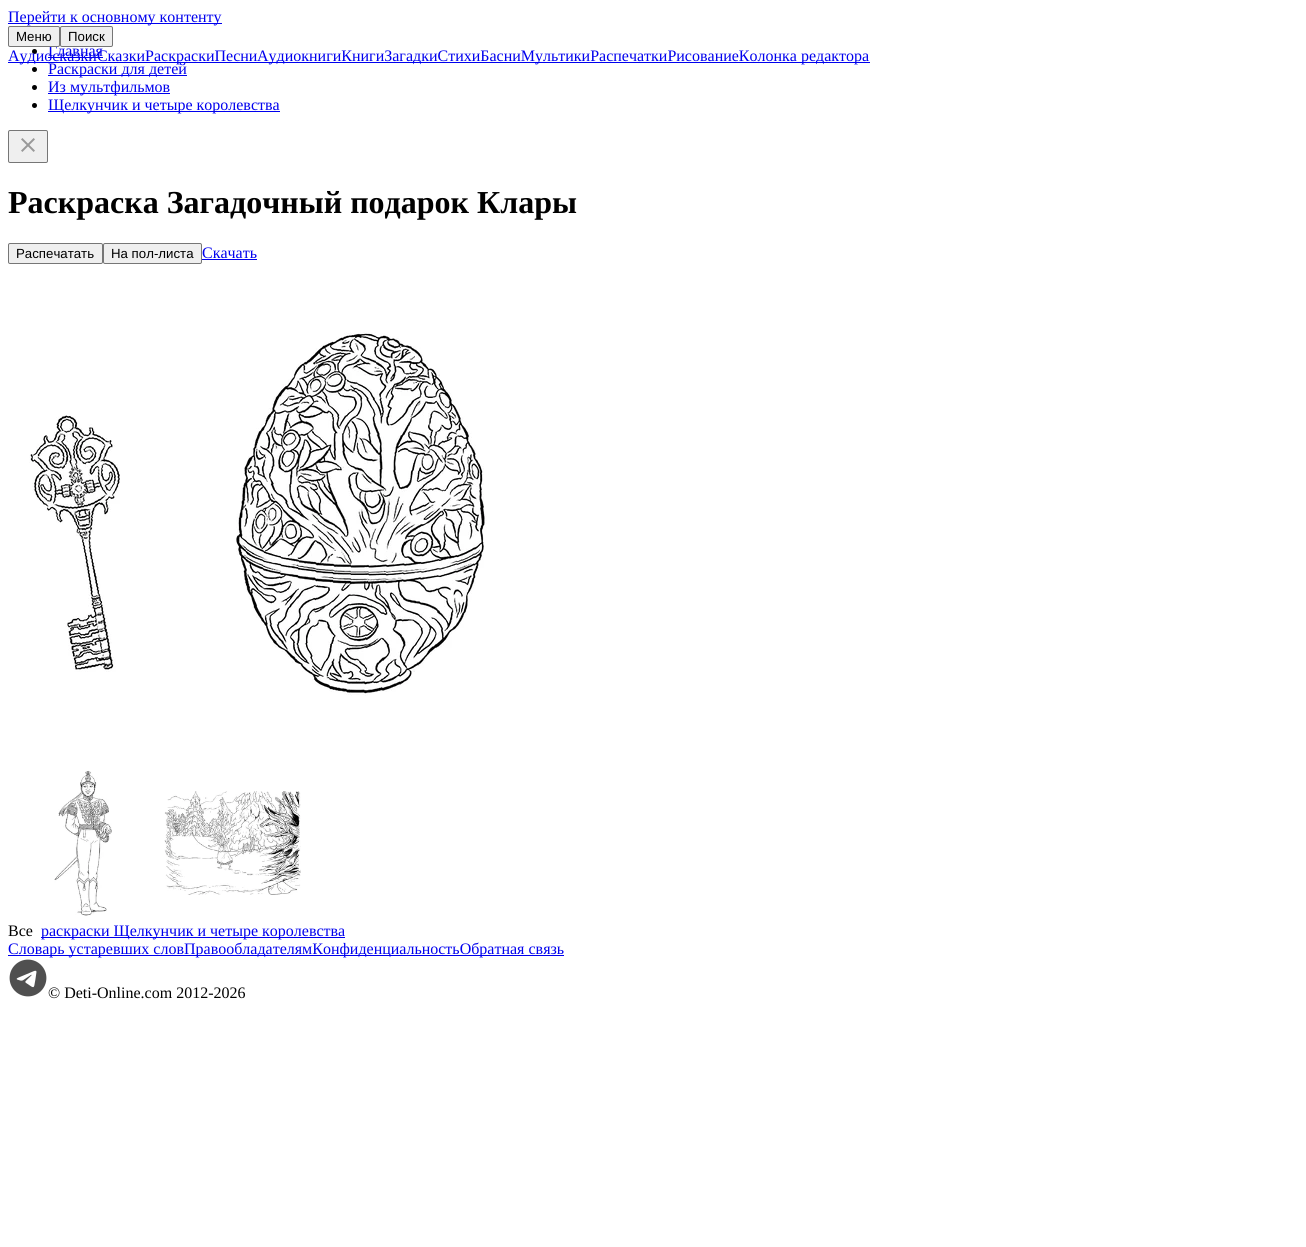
#include <cairo/cairo.h>
#include <math.h>
#include <stddef.h>

typedef struct { double x, y; const char *s; } line_t;
typedef struct { double x, y, w, h; unsigned color; } box_t;
static cairo_t *cr;

static void rgb(unsigned color)
{
	cairo_set_source_rgb(cr, (color >> 16) / 255.0, (color >> 8 & 255) / 255.0, (color & 255) / 255.0);
}

static void rrect(double x, double y, double w, double h, double r)
{
	cairo_new_sub_path(cr);
	cairo_arc(cr, x + w - r, y + h - r, r, 0, M_PI / 2);
	cairo_arc(cr, x + r, y + h - r, r, M_PI / 2, M_PI);
	cairo_arc(cr, x + r, y + r, r, M_PI, 1.5 * M_PI);
	cairo_arc(cr, x + w - r, y + r, r, 1.5 * M_PI, 2 * M_PI);
	cairo_close_path(cr);
}

static void image(const char *path, double x, double y, double w, double h)
{
	cairo_surface_t *image = cairo_image_surface_create_from_png(path);
	cairo_save(cr);
	cairo_set_source_surface(cr, image, x, y);
	cairo_rectangle(cr, x, y, w, h);
	cairo_fill(cr);
	cairo_restore(cr);
	cairo_surface_destroy(image);
}

int main(void) {
	cairo_surface_t *surface = cairo_image_surface_create(CAIRO_FORMAT_RGB24, 1306, 1247);
	cr = cairo_create(surface);
	cairo_font_options_t *options = cairo_font_options_create();
	cairo_font_options_set_hint_metrics(options, CAIRO_HINT_METRICS_OFF);
	cairo_font_options_set_hint_style(options, CAIRO_HINT_STYLE_NONE);
	cairo_set_font_options(cr, options);
	cairo_set_miter_limit(cr, 4);
	rgb(0xffffff);
	cairo_paint(cr);
	{
		static const box_t items[] = {
			{8, 23, 214, 1, 0x0000ee},
			{8, 62, 249, 1, 0x0000ee},
			{257, 62, 613, 1, 0x0000ee},
		};
		for (size_t i = 0; i < sizeof items / sizeof *items; i++) {
			rgb(items[i].color);
			cairo_rectangle(cr, items[i].x, items[i].y, items[i].w, items[i].h);
			cairo_fill(cr);
		}
	}
	rgb(0x000000);
	cairo_arc(cr, 34.5, 51.5, 2.5, 0, 2 * M_PI);
	cairo_fill(cr);
	rgb(0x0000ee);
	cairo_rectangle(cr, 48, 57, 55, 1);
	cairo_fill(cr);
	rgb(0x000000);
	cairo_arc(cr, 34.5, 69.5, 2.5, 0, 2 * M_PI);
	cairo_fill(cr);
	rgb(0x0000ee);
	cairo_rectangle(cr, 48, 75, 139, 1);
	cairo_fill(cr);
	rgb(0x000000);
	cairo_arc(cr, 34.5, 87.5, 2.5, 0, 2 * M_PI);
	cairo_fill(cr);
	rgb(0x0000ee);
	cairo_rectangle(cr, 48, 93, 122, 1);
	cairo_fill(cr);
	rgb(0x000000);
	cairo_arc(cr, 34.5, 105.5, 2.5, 0, 2 * M_PI);
	cairo_fill(cr);
	rgb(0x0000ee);
	cairo_rectangle(cr, 48, 111, 232, 1);
	cairo_fill(cr);
	rgb(0xefefef);
	rrect(8.5, 130.5, 39, 32, 1.5);
	cairo_fill_preserve(cr);
	rgb(0x767676);
	cairo_set_line_width(cr, 1);
	cairo_stroke(cr);
	image("img/1.png", 21, 138, 14, 14);
	rgb(0xefefef);
	rrect(8.5, 243.5, 94, 20, 1.5);
	cairo_fill_preserve(cr);
	rgb(0x767676);
	cairo_stroke(cr);
	rgb(0xefefef);
	rrect(103.5, 243.5, 98, 20, 1.5);
	cairo_fill_preserve(cr);
	rgb(0x767676);
	cairo_stroke(cr);
	rgb(0x0000ee);
	cairo_rectangle(cr, 202, 259, 55, 1);
	cairo_fill(cr);
	image("img/2.png", 29, 332, 458, 364);
	image("img/3.png", 54, 770, 58, 146);
	image("img/4.png", 164, 791, 137, 104);
	cairo_rectangle(cr, 41, 937, 304, 1);
	cairo_fill(cr);
	cairo_rectangle(cr, 8, 955, 556, 1);
	cairo_fill(cr);
	image("img/5.png", 9, 959, 38, 38);
	cairo_select_font_face(cr, "Liberation Serif", CAIRO_FONT_SLANT_NORMAL, CAIRO_FONT_WEIGHT_NORMAL);
	cairo_set_font_size(cr, 16);
	{
		static const line_t items[] = {
			{8, 22, "Перейти к основному контенту"},
			{48, 56, "Главная"},
			{8, 61, "АудиосказкиСказкиРаскраскиПесни"},
			{257, 61, "АудиокнигиКнигиЗагадкиСтихиБасниМультикиРаспечаткиРисованиеКолонка редактора"},
		};
		for (size_t i = 0; i < sizeof items / sizeof *items; i++) {
			cairo_move_to(cr, items[i].x, items[i].y);
			cairo_show_text(cr, items[i].s);
		}
	}
	rgb(0xefefef);
	rrect(60.5, 26.5, 52, 20, 1.5);
	cairo_fill_preserve(cr);
	rgb(0x767676);
	cairo_stroke(cr);
	cairo_select_font_face(cr, "Liberation Sans", CAIRO_FONT_SLANT_NORMAL, CAIRO_FONT_WEIGHT_NORMAL);
	cairo_set_font_size(cr, 13.25);
	rgb(0x000000);
	cairo_move_to(cr, 68, 41);
	cairo_show_text(cr, "Поиск");
	rgb(0xefefef);
	rrect(8.5, 26.5, 51, 20, 1.5);
	cairo_fill_preserve(cr);
	rgb(0x767676);
	cairo_stroke(cr);
	rgb(0x000000);
	cairo_move_to(cr, 16, 41);
	cairo_show_text(cr, "Меню");
	cairo_select_font_face(cr, "Liberation Serif", CAIRO_FONT_SLANT_NORMAL, CAIRO_FONT_WEIGHT_NORMAL);
	cairo_set_font_size(cr, 16);
	rgb(0x0000ee);
	{
		static const line_t items[] = {
			{48, 74, "Раскраски для детей"},
			{48, 92, "Из мультфильмов"},
			{48, 110, "Щелкунчик и четыре королевства"},
		};
		for (size_t i = 0; i < sizeof items / sizeof *items; i++) {
			cairo_move_to(cr, items[i].x, items[i].y);
			cairo_show_text(cr, items[i].s);
		}
	}
	cairo_select_font_face(cr, "Liberation Serif", CAIRO_FONT_SLANT_NORMAL, CAIRO_FONT_WEIGHT_BOLD);
	cairo_set_font_size(cr, 32);
	rgb(0x000000);
	cairo_move_to(cr, 8, 213);
	cairo_show_text(cr, "Раскраска Загадочный подарок Клары");
	cairo_select_font_face(cr, "Liberation Sans", CAIRO_FONT_SLANT_NORMAL, CAIRO_FONT_WEIGHT_NORMAL);
	cairo_set_font_size(cr, 13.25);
	cairo_move_to(cr, 16, 258);
	cairo_show_text(cr, "Распечатать");
	cairo_move_to(cr, 111, 258);
	cairo_show_text(cr, "На пол-листа");
	cairo_select_font_face(cr, "Liberation Serif", CAIRO_FONT_SLANT_NORMAL, CAIRO_FONT_WEIGHT_NORMAL);
	cairo_set_font_size(cr, 16);
	rgb(0x0000ee);
	cairo_move_to(cr, 202, 258);
	cairo_show_text(cr, "Скачать");
	rgb(0x000000);
	cairo_move_to(cr, 8, 936);
	cairo_show_text(cr, "Все");
	rgb(0x0000ee);
	cairo_move_to(cr, 41, 936);
	cairo_show_text(cr, "раскраски Щелкунчик и четыре королевства");
	cairo_move_to(cr, 8, 954);
	cairo_show_text(cr, "Словарь устаревших словПравообладателямКонфиденциальностьОбратная связь");
	rgb(0x000000);
	cairo_move_to(cr, 48, 998);
	cairo_show_text(cr, "© Deti-Online.com 2012-2026");
	cairo_surface_write_to_png(surface, "page.png");
	cairo_font_options_destroy(options);
	cairo_destroy(cr);
	cairo_surface_destroy(surface);
	return 0;
}
